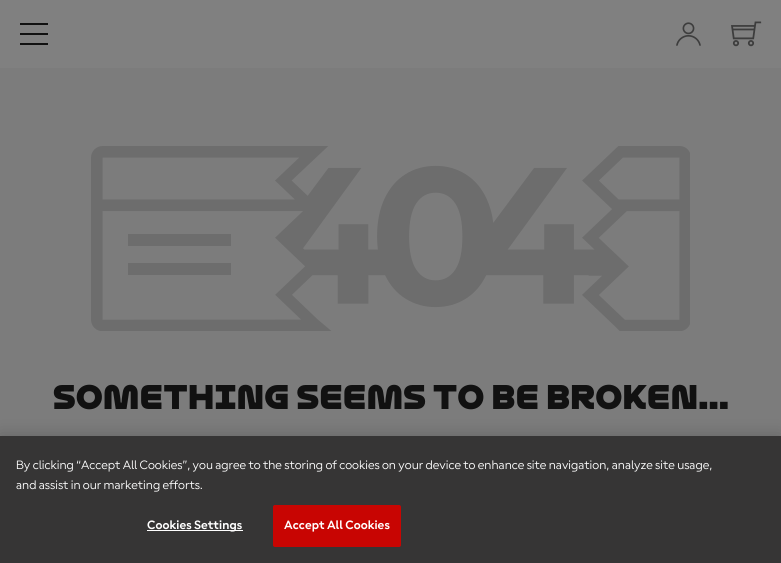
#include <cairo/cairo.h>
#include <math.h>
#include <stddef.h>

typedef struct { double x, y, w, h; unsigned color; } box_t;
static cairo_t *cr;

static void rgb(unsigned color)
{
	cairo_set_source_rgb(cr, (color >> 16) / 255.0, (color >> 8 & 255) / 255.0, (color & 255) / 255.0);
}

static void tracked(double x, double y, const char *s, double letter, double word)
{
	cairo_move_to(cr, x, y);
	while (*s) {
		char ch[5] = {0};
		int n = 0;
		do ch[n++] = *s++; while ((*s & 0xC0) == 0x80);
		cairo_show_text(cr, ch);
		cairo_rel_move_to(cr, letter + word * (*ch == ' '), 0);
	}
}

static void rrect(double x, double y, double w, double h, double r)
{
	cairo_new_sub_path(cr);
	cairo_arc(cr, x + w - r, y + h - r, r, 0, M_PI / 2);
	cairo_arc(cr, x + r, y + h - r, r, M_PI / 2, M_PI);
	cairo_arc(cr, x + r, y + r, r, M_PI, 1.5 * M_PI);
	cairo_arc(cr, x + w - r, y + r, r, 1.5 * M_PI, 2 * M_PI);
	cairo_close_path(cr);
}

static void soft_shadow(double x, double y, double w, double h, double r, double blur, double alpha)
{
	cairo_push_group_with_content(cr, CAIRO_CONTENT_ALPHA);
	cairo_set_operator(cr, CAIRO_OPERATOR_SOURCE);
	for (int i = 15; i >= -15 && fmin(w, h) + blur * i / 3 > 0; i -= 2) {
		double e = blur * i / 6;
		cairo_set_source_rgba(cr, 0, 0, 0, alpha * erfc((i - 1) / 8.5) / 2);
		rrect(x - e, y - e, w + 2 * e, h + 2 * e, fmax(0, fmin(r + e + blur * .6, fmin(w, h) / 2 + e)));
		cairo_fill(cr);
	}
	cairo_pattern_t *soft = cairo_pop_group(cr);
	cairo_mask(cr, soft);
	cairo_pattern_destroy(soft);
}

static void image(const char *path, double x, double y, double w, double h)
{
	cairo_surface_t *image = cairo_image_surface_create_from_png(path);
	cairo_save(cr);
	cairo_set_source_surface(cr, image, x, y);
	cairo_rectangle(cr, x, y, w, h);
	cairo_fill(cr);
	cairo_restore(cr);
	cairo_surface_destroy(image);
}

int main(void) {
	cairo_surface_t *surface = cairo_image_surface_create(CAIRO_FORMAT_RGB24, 781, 563);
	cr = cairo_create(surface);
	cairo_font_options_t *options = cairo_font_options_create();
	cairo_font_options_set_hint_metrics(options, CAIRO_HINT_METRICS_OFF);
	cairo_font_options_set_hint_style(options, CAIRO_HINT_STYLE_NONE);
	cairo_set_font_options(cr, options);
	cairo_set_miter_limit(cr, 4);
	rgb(0x7c7c7c);
	cairo_paint(cr);
	{
		static const box_t items[] = {
			{0, 0, 781, 68, 0x808080},
			{20, 23, 28, 2, 0x111111},
			{20, 33, 28, 2, 0x111111},
			{20, 43, 28, 2, 0x111111},
		};
		for (size_t i = 0; i < sizeof items / sizeof *items; i++) {
			rgb(items[i].color);
			cairo_rectangle(cr, items[i].x, items[i].y, items[i].w, items[i].h);
			cairo_fill(cr);
		}
	}
	image("img/1.png", 676, 22, 25, 24);
	image("img/2.png", 731, 21, 31, 26);
	image("img/3.png", 91, 146, 599, 185);
	rgb(0x000000);
	soft_shadow(0, 436, 781, 127, 0, 9, 0.2);
	rgb(0x363535);
	cairo_rectangle(cr, 0, 436, 781, 127);
	cairo_fill(cr);
	rgb(0xffffff);
	cairo_rectangle(cr, 147, 530, 96, 1);
	cairo_fill(cr);
	rgb(0xc80502);
	rrect(273.5, 505.5, 127, 41, 1.5);
	cairo_fill_preserve(cr);
	cairo_set_line_width(cr, 1);
	cairo_stroke(cr);
	cairo_select_font_face(cr, "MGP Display", CAIRO_FONT_SLANT_NORMAL, CAIRO_FONT_WEIGHT_BOLD);
	cairo_set_font_size(cr, 30);
	rgb(0x111111);
	cairo_move_to(cr, 53, 409);
	cairo_show_text(cr, "SOMETHING SEEMS TO BE BROKEN...");
	cairo_select_font_face(cr, "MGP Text", CAIRO_FONT_SLANT_NORMAL, CAIRO_FONT_WEIGHT_NORMAL);
	cairo_set_font_size(cr, 13);
	rgb(0xffffff);
	cairo_move_to(cr, 16, 469);
	cairo_show_text(cr, "By clicking “Accept All Cookies”, you agree to the storing of cookies on your device to enhance site navigation, analyze site usage,");
	cairo_move_to(cr, 16, 489);
	cairo_show_text(cr, "and assist in our marketing efforts.");
	cairo_select_font_face(cr, "MGP Text", CAIRO_FONT_SLANT_NORMAL, CAIRO_FONT_WEIGHT_BOLD);
	tracked(147, 529, "Cookies Settings", 0.1, 0);
	tracked(284, 529, "Accept All Cookies", 0.1, 0);
	cairo_surface_write_to_png(surface, "page.png");
	cairo_font_options_destroy(options);
	cairo_destroy(cr);
	cairo_surface_destroy(surface);
	return 0;
}
